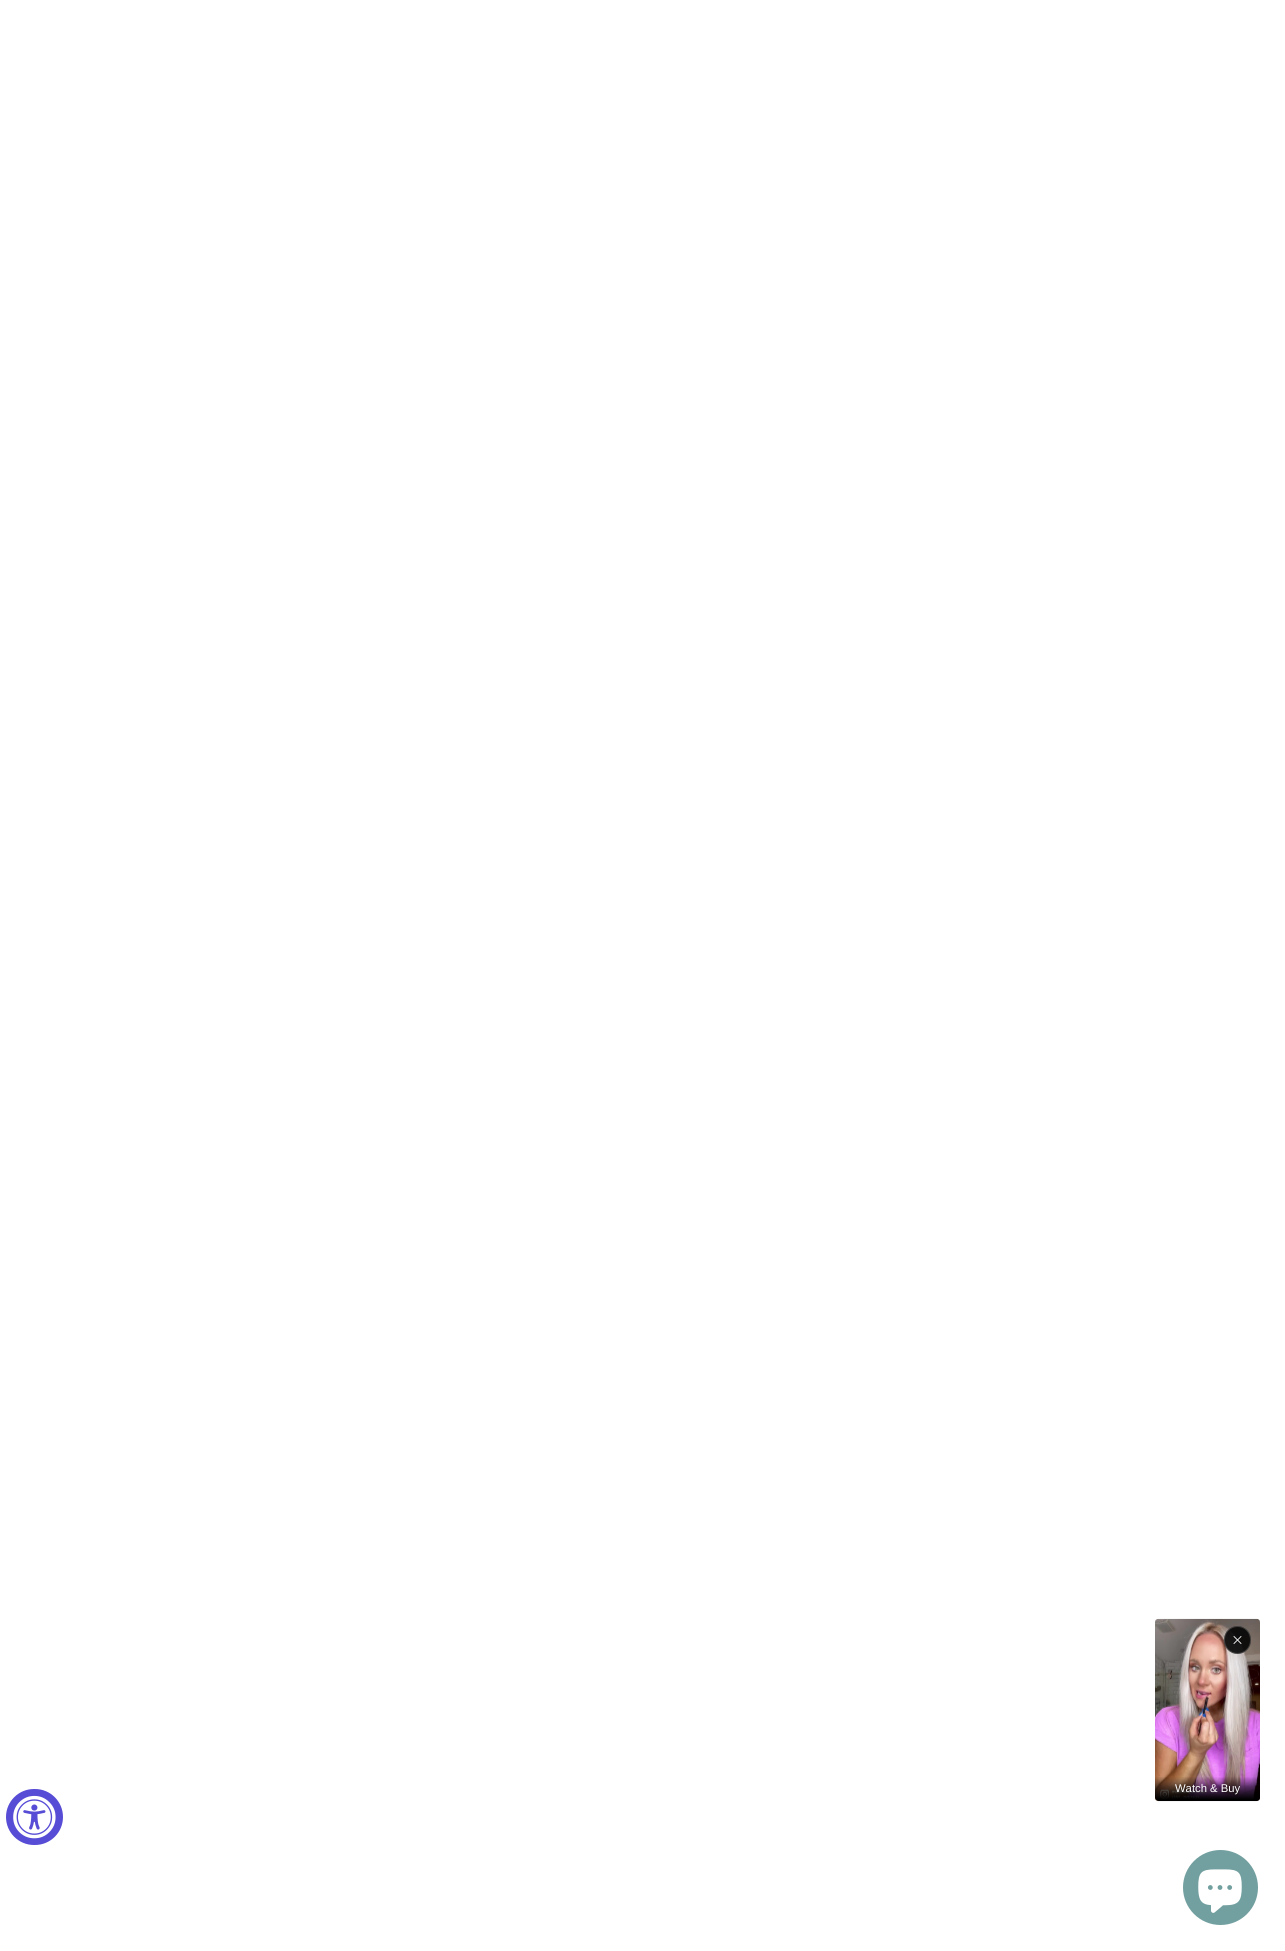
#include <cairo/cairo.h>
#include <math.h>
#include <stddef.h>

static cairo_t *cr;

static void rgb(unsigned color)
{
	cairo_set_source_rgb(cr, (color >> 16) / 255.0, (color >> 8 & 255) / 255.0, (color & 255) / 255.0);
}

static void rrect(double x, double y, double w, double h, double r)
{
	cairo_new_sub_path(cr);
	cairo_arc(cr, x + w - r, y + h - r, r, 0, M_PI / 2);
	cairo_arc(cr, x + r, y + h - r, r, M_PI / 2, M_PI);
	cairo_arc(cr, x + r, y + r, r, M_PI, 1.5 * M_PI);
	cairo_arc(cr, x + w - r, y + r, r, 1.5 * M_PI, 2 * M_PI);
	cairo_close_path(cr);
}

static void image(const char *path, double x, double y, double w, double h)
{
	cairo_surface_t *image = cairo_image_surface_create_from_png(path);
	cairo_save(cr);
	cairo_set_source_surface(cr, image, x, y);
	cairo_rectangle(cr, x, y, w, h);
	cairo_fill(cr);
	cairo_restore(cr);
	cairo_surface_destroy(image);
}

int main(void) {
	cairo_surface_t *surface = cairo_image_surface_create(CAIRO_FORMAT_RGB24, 1285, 1951);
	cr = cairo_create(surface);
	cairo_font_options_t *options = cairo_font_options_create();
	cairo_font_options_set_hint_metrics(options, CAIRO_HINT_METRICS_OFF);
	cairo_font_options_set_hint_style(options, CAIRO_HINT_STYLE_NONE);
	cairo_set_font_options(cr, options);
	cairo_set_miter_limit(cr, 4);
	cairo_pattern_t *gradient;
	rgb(0xffffff);
	cairo_paint(cr);
	rgb(0x574cd5);
	rrect(6, 1789, 57, 56, 28);
	cairo_fill(cr);
	image("img/1.png", 13, 1795, 43, 44);
	image("img/2.png", 1155, 1618, 105, 184);
	cairo_set_source_rgba(cr, 0.016, 0.016, 0.016, 0.9);
	rrect(1224, 1626, 27, 28, 13.5);
	cairo_fill(cr);
	rrect(1224.5, 1626.5, 26, 27, 13);
	cairo_set_source_rgba(cr, 1, 1, 1, 0.2);
	cairo_set_line_width(cr, 1);
	cairo_stroke(cr);
	image("img/3.png", 1233, 1636, 9, 8);
	gradient = cairo_pattern_create_linear(1208, 1801, 1208, 1775);
	cairo_pattern_add_color_stop_rgba(gradient, 0.05, 0, 0, 0, 1);
	cairo_pattern_add_color_stop_rgba(gradient, 0.56, 0, 0, 0, 0.5);
	cairo_pattern_add_color_stop_rgba(gradient, 0.94, 0, 0, 0, 0);
	cairo_set_source(cr, gradient);
	cairo_pattern_destroy(gradient);
	cairo_new_path(cr);
	cairo_move_to(cr, 1155, 1775);
	cairo_line_to(cr, 1260, 1775);
	cairo_line_to(cr, 1260, 1797);
	cairo_curve_to(cr, 1260, 1799, 1258, 1801, 1256, 1801);
	cairo_line_to(cr, 1159, 1801);
	cairo_curve_to(cr, 1157, 1801, 1155, 1799, 1155, 1797);
	cairo_close_path(cr);
	cairo_fill(cr);
	rgb(0x729f9f);
	cairo_arc(cr, 1220.5, 1887.5, 37.5, 0, 2 * M_PI);
	cairo_fill(cr);
	image("img/4.png", 1198, 1869, 44, 44);
	cairo_select_font_face(cr, "Arimo", CAIRO_FONT_SLANT_NORMAL, CAIRO_FONT_WEIGHT_NORMAL);
	cairo_set_font_size(cr, 11.25);
	rgb(0xffffff);
	cairo_move_to(cr, 1175, 1792);
	cairo_show_text(cr, "Watch & Buy");
	cairo_surface_write_to_png(surface, "page.png");
	cairo_font_options_destroy(options);
	cairo_destroy(cr);
	cairo_surface_destroy(surface);
	return 0;
}
